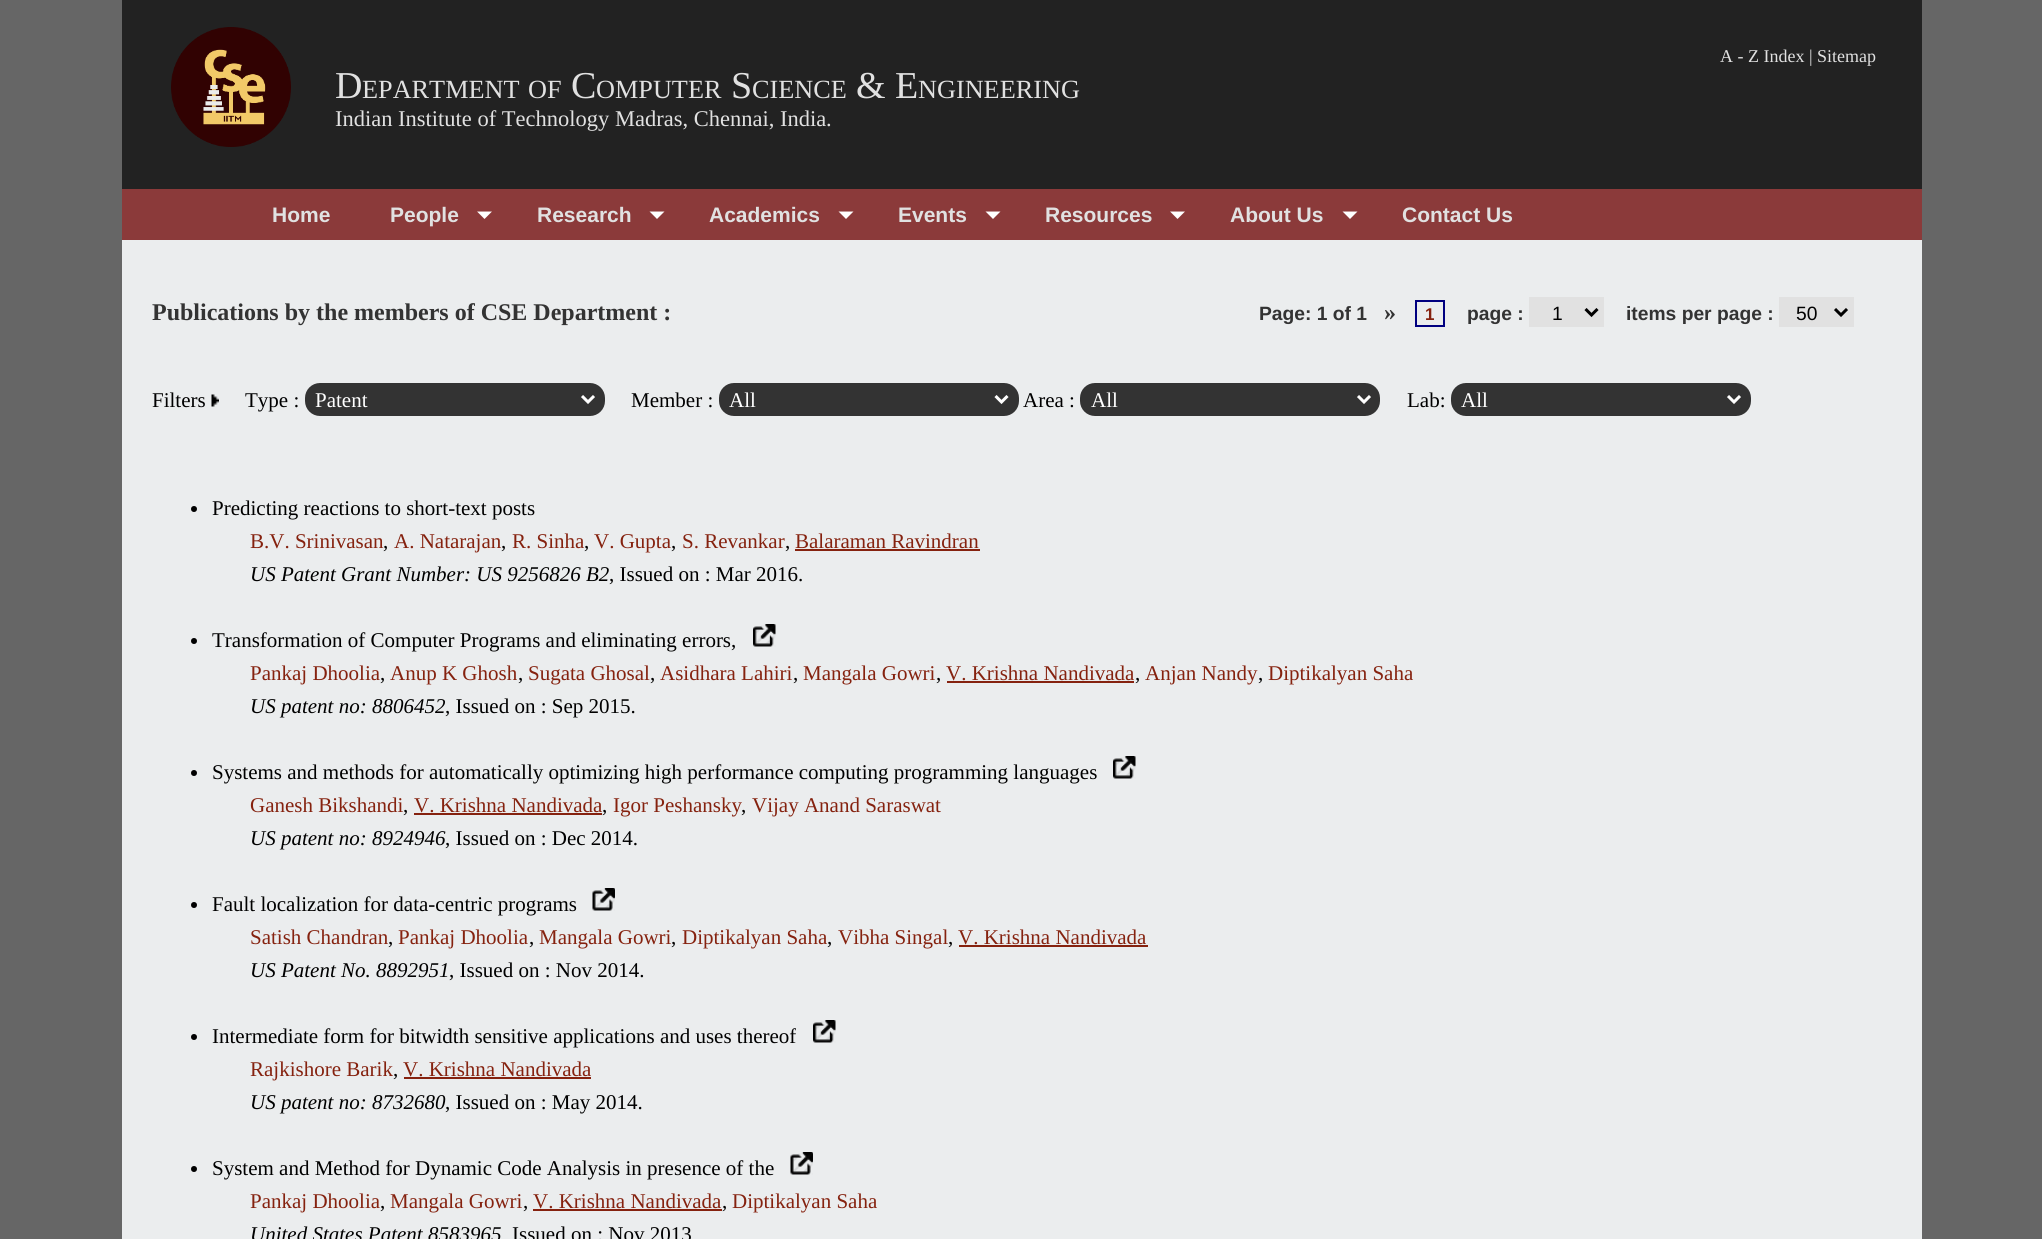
#include <cairo/cairo.h>
#include <math.h>
#include <stddef.h>

typedef struct { double x, y; const char *s; } line_t;
static cairo_t *cr;

static void rgb(unsigned color)
{
	cairo_set_source_rgb(cr, (color >> 16) / 255.0, (color >> 8 & 255) / 255.0, (color & 255) / 255.0);
}

static void rrect(double x, double y, double w, double h, double r)
{
	cairo_new_sub_path(cr);
	cairo_arc(cr, x + w - r, y + h - r, r, 0, M_PI / 2);
	cairo_arc(cr, x + r, y + h - r, r, M_PI / 2, M_PI);
	cairo_arc(cr, x + r, y + r, r, M_PI, 1.5 * M_PI);
	cairo_arc(cr, x + w - r, y + r, r, 1.5 * M_PI, 2 * M_PI);
	cairo_close_path(cr);
}

static void image(const char *path, double x, double y, double w, double h)
{
	cairo_surface_t *image = cairo_image_surface_create_from_png(path);
	cairo_save(cr);
	cairo_set_source_surface(cr, image, x, y);
	cairo_rectangle(cr, x, y, w, h);
	cairo_fill(cr);
	cairo_restore(cr);
	cairo_surface_destroy(image);
}

int main(void) {
	cairo_surface_t *surface = cairo_image_surface_create(CAIRO_FORMAT_RGB24, 2042, 1239);
	cr = cairo_create(surface);
	cairo_font_options_t *options = cairo_font_options_create();
	cairo_font_options_set_hint_metrics(options, CAIRO_HINT_METRICS_OFF);
	cairo_font_options_set_hint_style(options, CAIRO_HINT_STYLE_NONE);
	cairo_set_font_options(cr, options);
	cairo_set_miter_limit(cr, 4);
	rgb(0x666666);
	cairo_paint(cr);
	rgb(0x222222);
	cairo_rectangle(cr, 122, 0, 1800, 189);
	cairo_fill(cr);
	image("img/1.png", 171, 27, 120, 120);
	rgb(0x8b3a3a);
	cairo_rectangle(cr, 122, 189, 1800, 51);
	cairo_fill(cr);
	rgb(0xffffff);
	cairo_new_path(cr);
	cairo_move_to(cr, 477, 211.5);
	cairo_line_to(cr, 492, 211.5);
	cairo_line_to(cr, 484.5, 219);
	cairo_close_path(cr);
	cairo_fill(cr);
	cairo_new_path(cr);
	cairo_move_to(cr, 649.5, 211.5);
	cairo_line_to(cr, 664.5, 211.5);
	cairo_line_to(cr, 657, 219);
	cairo_close_path(cr);
	cairo_fill(cr);
	cairo_new_path(cr);
	cairo_move_to(cr, 838.5, 211.5);
	cairo_line_to(cr, 853.5, 211.5);
	cairo_line_to(cr, 846, 219);
	cairo_close_path(cr);
	cairo_fill(cr);
	cairo_new_path(cr);
	cairo_move_to(cr, 985.5, 211.5);
	cairo_line_to(cr, 1000.5, 211.5);
	cairo_line_to(cr, 993, 219);
	cairo_close_path(cr);
	cairo_fill(cr);
	cairo_new_path(cr);
	cairo_move_to(cr, 1170, 211.5);
	cairo_line_to(cr, 1185, 211.5);
	cairo_line_to(cr, 1177.5, 219);
	cairo_close_path(cr);
	cairo_fill(cr);
	cairo_new_path(cr);
	cairo_move_to(cr, 1342.5, 211.5);
	cairo_line_to(cr, 1357.5, 211.5);
	cairo_line_to(cr, 1350, 219);
	cairo_close_path(cr);
	cairo_fill(cr);
	rgb(0xebedee);
	cairo_rectangle(cr, 122, 240, 1800, 999);
	cairo_fill(cr);
	cairo_rectangle(cr, 1416, 301, 28, 25);
	rgb(0x000080);
	cairo_stroke(cr);
	rgb(0xe1e1e1);
	cairo_rectangle(cr, 1529, 297, 75, 30);
	cairo_fill(cr);
	cairo_new_path(cr);
	cairo_move_to(cr, 1585.5, 309);
	cairo_line_to(cr, 1591.5, 315);
	cairo_line_to(cr, 1597.5, 309);
	rgb(0x000000);
	cairo_set_line_width(cr, 3);
	cairo_stroke(cr);
	rgb(0xe1e1e1);
	cairo_rectangle(cr, 1779, 297, 75, 30);
	cairo_fill(cr);
	cairo_new_path(cr);
	cairo_move_to(cr, 1835, 309);
	cairo_line_to(cr, 1841, 315);
	cairo_line_to(cr, 1847, 309);
	rgb(0x000000);
	cairo_stroke(cr);
	image("img/2.png", 211, 394, 8, 13);
	rgb(0x333333);
	rrect(307.5, 385.5, 295, 28, 12.5);
	cairo_fill_preserve(cr);
	cairo_set_line_width(cr, 5);
	cairo_stroke(cr);
	cairo_new_path(cr);
	cairo_move_to(cr, 582, 396);
	cairo_line_to(cr, 588, 402);
	cairo_line_to(cr, 594, 396);
	rgb(0xffffff);
	cairo_set_line_width(cr, 3);
	cairo_stroke(cr);
	rgb(0x333333);
	rrect(721.5, 385.5, 295, 28, 12.5);
	cairo_fill_preserve(cr);
	cairo_set_line_width(cr, 5);
	cairo_stroke(cr);
	cairo_new_path(cr);
	cairo_move_to(cr, 995.5, 396);
	cairo_line_to(cr, 1001.5, 402);
	cairo_line_to(cr, 1007.5, 396);
	rgb(0xffffff);
	cairo_set_line_width(cr, 3);
	cairo_stroke(cr);
	rgb(0x333333);
	rrect(1082.5, 385.5, 295, 28, 12.5);
	cairo_fill_preserve(cr);
	cairo_set_line_width(cr, 5);
	cairo_stroke(cr);
	cairo_new_path(cr);
	cairo_move_to(cr, 1358, 396);
	cairo_line_to(cr, 1364, 402);
	cairo_line_to(cr, 1370, 396);
	rgb(0xffffff);
	cairo_set_line_width(cr, 3);
	cairo_stroke(cr);
	rgb(0x333333);
	rrect(1453.5, 385.5, 295, 28, 12.5);
	cairo_fill_preserve(cr);
	cairo_set_line_width(cr, 5);
	cairo_stroke(cr);
	cairo_new_path(cr);
	cairo_move_to(cr, 1728, 396);
	cairo_line_to(cr, 1734, 402);
	cairo_line_to(cr, 1740, 396);
	rgb(0xffffff);
	cairo_set_line_width(cr, 3);
	cairo_stroke(cr);
	rgb(0x000000);
	cairo_arc(cr, 194, 509, 3, 0, 2 * M_PI);
	cairo_fill(cr);
	rgb(0x85220f);
	cairo_rectangle(cr, 795, 549, 185, 2);
	cairo_fill(cr);
	rgb(0x000000);
	cairo_arc(cr, 194, 641, 3, 0, 2 * M_PI);
	cairo_fill(cr);
	image("img/3.png", 753, 624, 23, 23);
	rgb(0x85220f);
	cairo_rectangle(cr, 947, 681, 187, 2);
	cairo_fill(cr);
	rgb(0x000000);
	cairo_arc(cr, 194, 773, 3, 0, 2 * M_PI);
	cairo_fill(cr);
	image("img/4.png", 1113, 756, 23, 23);
	rgb(0x85220f);
	cairo_rectangle(cr, 414, 813, 188, 2);
	cairo_fill(cr);
	rgb(0x000000);
	cairo_arc(cr, 194, 905, 3, 0, 2 * M_PI);
	cairo_fill(cr);
	image("img/5.png", 592, 888, 23, 23);
	rgb(0x85220f);
	cairo_rectangle(cr, 959, 945, 189, 2);
	cairo_fill(cr);
	rgb(0x000000);
	cairo_arc(cr, 194, 1037, 3, 0, 2 * M_PI);
	cairo_fill(cr);
	image("img/6.png", 813, 1020, 23, 23);
	rgb(0x85220f);
	cairo_rectangle(cr, 404, 1077, 187, 2);
	cairo_fill(cr);
	rgb(0x000000);
	cairo_arc(cr, 194, 1169, 3, 0, 2 * M_PI);
	cairo_fill(cr);
	image("img/7.png", 790, 1152, 23, 23);
	rgb(0x85220f);
	cairo_rectangle(cr, 533, 1209, 189, 2);
	cairo_fill(cr);
	cairo_select_font_face(cr, "Liberation Serif", CAIRO_FONT_SLANT_NORMAL, CAIRO_FONT_WEIGHT_NORMAL);
	cairo_set_font_size(cr, 18);
	rgb(0xe1e1e1);
	cairo_move_to(cr, 1720, 62);
	cairo_show_text(cr, "A - Z Index | Sitemap");
	cairo_set_font_size(cr, 38);
	cairo_move_to(cr, 335, 98);
	cairo_show_text(cr, "D");
	cairo_set_font_size(cr, 26.25);
	cairo_move_to(cr, 362, 98);
	cairo_show_text(cr, "EPARTMENT");
	cairo_move_to(cr, 528, 98);
	cairo_show_text(cr, "OF");
	cairo_set_font_size(cr, 38);
	cairo_move_to(cr, 571, 98);
	cairo_show_text(cr, "C");
	cairo_set_font_size(cr, 26.25);
	cairo_move_to(cr, 596, 98);
	cairo_show_text(cr, "OMPUTER");
	cairo_set_font_size(cr, 38);
	cairo_move_to(cr, 731, 98);
	cairo_show_text(cr, "S");
	cairo_set_font_size(cr, 26.25);
	cairo_move_to(cr, 752, 98);
	cairo_show_text(cr, "CIENCE");
	cairo_set_font_size(cr, 38);
	cairo_move_to(cr, 856, 98);
	cairo_show_text(cr, "& E");
	cairo_set_font_size(cr, 26.25);
	cairo_move_to(cr, 918, 98);
	cairo_show_text(cr, "NGINEERING");
	cairo_set_font_size(cr, 22.5);
	cairo_move_to(cr, 335, 126);
	cairo_show_text(cr, "Indian Institute of Technology Madras, Chennai, India.");
	cairo_select_font_face(cr, "Liberation Sans", CAIRO_FONT_SLANT_NORMAL, CAIRO_FONT_WEIGHT_BOLD);
	cairo_set_font_size(cr, 21);
	{
		static const line_t items[] = {
			{272, 222, "Home"},
			{390, 222, "People"},
			{537, 222, "Research"},
			{709, 222, "Academics"},
			{898, 222, "Events"},
			{1045, 222, "Resources"},
			{1230, 222, "About Us"},
			{1402, 222, "Contact Us"},
		};
		for (size_t i = 0; i < sizeof items / sizeof *items; i++) {
			cairo_move_to(cr, items[i].x, items[i].y);
			cairo_show_text(cr, items[i].s);
		}
	}
	cairo_select_font_face(cr, "Liberation Serif", CAIRO_FONT_SLANT_NORMAL, CAIRO_FONT_WEIGHT_BOLD);
	cairo_set_font_size(cr, 24);
	rgb(0x333333);
	cairo_move_to(cr, 152, 320);
	cairo_show_text(cr, "Publications by the members of CSE Department :");
	cairo_select_font_face(cr, "Liberation Sans", CAIRO_FONT_SLANT_NORMAL, CAIRO_FONT_WEIGHT_BOLD);
	cairo_set_font_size(cr, 19.25);
	cairo_move_to(cr, 1259, 320);
	cairo_show_text(cr, "Page: 1 of 1");
	cairo_select_font_face(cr, "Liberation Serif", CAIRO_FONT_SLANT_NORMAL, CAIRO_FONT_WEIGHT_BOLD);
	cairo_set_font_size(cr, 24);
	cairo_move_to(cr, 1384, 320);
	cairo_show_text(cr, "»");
	cairo_select_font_face(cr, "Liberation Sans", CAIRO_FONT_SLANT_NORMAL, CAIRO_FONT_WEIGHT_BOLD);
	cairo_set_font_size(cr, 17);
	rgb(0x85220f);
	cairo_move_to(cr, 1425, 320);
	cairo_show_text(cr, "1");
	cairo_set_font_size(cr, 19.25);
	rgb(0x333333);
	cairo_move_to(cr, 1467, 320);
	cairo_show_text(cr, "page :");
	cairo_select_font_face(cr, "Liberation Sans", CAIRO_FONT_SLANT_NORMAL, CAIRO_FONT_WEIGHT_NORMAL);
	rgb(0x000000);
	cairo_move_to(cr, 1552, 320);
	cairo_show_text(cr, "1");
	cairo_select_font_face(cr, "Liberation Sans", CAIRO_FONT_SLANT_NORMAL, CAIRO_FONT_WEIGHT_BOLD);
	rgb(0x333333);
	cairo_move_to(cr, 1626, 320);
	cairo_show_text(cr, "items per page :");
	cairo_select_font_face(cr, "Liberation Sans", CAIRO_FONT_SLANT_NORMAL, CAIRO_FONT_WEIGHT_NORMAL);
	rgb(0x000000);
	cairo_move_to(cr, 1796, 320);
	cairo_show_text(cr, "50");
	cairo_select_font_face(cr, "Liberation Serif", CAIRO_FONT_SLANT_NORMAL, CAIRO_FONT_WEIGHT_NORMAL);
	cairo_set_font_size(cr, 21);
	cairo_move_to(cr, 152, 407);
	cairo_show_text(cr, "Filters");
	cairo_move_to(cr, 245, 407);
	cairo_show_text(cr, "Type :");
	rgb(0xffffff);
	cairo_move_to(cr, 315, 407);
	cairo_show_text(cr, "Patent");
	rgb(0x000000);
	cairo_move_to(cr, 631, 407);
	cairo_show_text(cr, "Member :");
	rgb(0xffffff);
	cairo_move_to(cr, 729, 407);
	cairo_show_text(cr, "All");
	rgb(0x000000);
	cairo_move_to(cr, 1023, 407);
	cairo_show_text(cr, "Area :");
	rgb(0xffffff);
	cairo_move_to(cr, 1091, 407);
	cairo_show_text(cr, "All");
	rgb(0x000000);
	cairo_move_to(cr, 1407, 407);
	cairo_show_text(cr, "Lab:");
	rgb(0xffffff);
	cairo_move_to(cr, 1461, 407);
	cairo_show_text(cr, "All");
	rgb(0x000000);
	cairo_move_to(cr, 212, 515);
	cairo_show_text(cr, "Predicting reactions to short-text posts");
	rgb(0x85220f);
	cairo_move_to(cr, 250, 548);
	cairo_show_text(cr, "B.V. Srinivasan");
	rgb(0x000000);
	cairo_move_to(cr, 383, 548);
	cairo_show_text(cr, ",");
	rgb(0x85220f);
	cairo_move_to(cr, 394, 548);
	cairo_show_text(cr, "A. Natarajan");
	rgb(0x000000);
	cairo_move_to(cr, 501, 548);
	cairo_show_text(cr, ",");
	rgb(0x85220f);
	cairo_move_to(cr, 512, 548);
	cairo_show_text(cr, "R. Sinha");
	rgb(0x000000);
	cairo_move_to(cr, 584, 548);
	cairo_show_text(cr, ",");
	rgb(0x85220f);
	cairo_move_to(cr, 594, 548);
	cairo_show_text(cr, "V. Gupta");
	rgb(0x000000);
	cairo_move_to(cr, 671, 548);
	cairo_show_text(cr, ",");
	rgb(0x85220f);
	cairo_move_to(cr, 682, 548);
	cairo_show_text(cr, "S. Revankar");
	rgb(0x000000);
	cairo_move_to(cr, 785, 548);
	cairo_show_text(cr, ",");
	rgb(0x85220f);
	cairo_move_to(cr, 795, 548);
	cairo_show_text(cr, "Balaraman Ravindran");
	cairo_select_font_face(cr, "Liberation Serif", CAIRO_FONT_SLANT_ITALIC, CAIRO_FONT_WEIGHT_NORMAL);
	rgb(0x000000);
	cairo_move_to(cr, 250, 581);
	cairo_show_text(cr, "US Patent Grant Number: US 9256826 B2");
	cairo_select_font_face(cr, "Liberation Serif", CAIRO_FONT_SLANT_NORMAL, CAIRO_FONT_WEIGHT_NORMAL);
	cairo_move_to(cr, 609, 581);
	cairo_show_text(cr, ", Issued on : Mar 2016.");
	cairo_move_to(cr, 212, 647);
	cairo_show_text(cr, "Transformation of Computer Programs and eliminating errors,");
	rgb(0x85220f);
	cairo_move_to(cr, 250, 680);
	cairo_show_text(cr, "Pankaj Dhoolia");
	rgb(0x000000);
	cairo_move_to(cr, 380, 680);
	cairo_show_text(cr, ",");
	rgb(0x85220f);
	cairo_move_to(cr, 390, 680);
	cairo_show_text(cr, "Anup K Ghosh");
	rgb(0x000000);
	cairo_move_to(cr, 518, 680);
	cairo_show_text(cr, ",");
	rgb(0x85220f);
	cairo_move_to(cr, 528, 680);
	cairo_show_text(cr, "Sugata Ghosal");
	rgb(0x000000);
	cairo_move_to(cr, 650, 680);
	cairo_show_text(cr, ",");
	rgb(0x85220f);
	cairo_move_to(cr, 660, 680);
	cairo_show_text(cr, "Asidhara Lahiri");
	rgb(0x000000);
	cairo_move_to(cr, 793, 680);
	cairo_show_text(cr, ",");
	rgb(0x85220f);
	cairo_move_to(cr, 803, 680);
	cairo_show_text(cr, "Mangala Gowri");
	rgb(0x000000);
	cairo_move_to(cr, 936, 680);
	cairo_show_text(cr, ",");
	rgb(0x85220f);
	cairo_move_to(cr, 946, 680);
	cairo_show_text(cr, "V. Krishna Nandivada");
	rgb(0x000000);
	cairo_move_to(cr, 1135, 680);
	cairo_show_text(cr, ",");
	rgb(0x85220f);
	cairo_move_to(cr, 1145, 680);
	cairo_show_text(cr, "Anjan Nandy");
	rgb(0x000000);
	cairo_move_to(cr, 1258, 680);
	cairo_show_text(cr, ",");
	rgb(0x85220f);
	cairo_move_to(cr, 1268, 680);
	cairo_show_text(cr, "Diptikalyan Saha");
	cairo_select_font_face(cr, "Liberation Serif", CAIRO_FONT_SLANT_ITALIC, CAIRO_FONT_WEIGHT_NORMAL);
	rgb(0x000000);
	cairo_move_to(cr, 250, 713);
	cairo_show_text(cr, "US patent no: 8806452");
	cairo_select_font_face(cr, "Liberation Serif", CAIRO_FONT_SLANT_NORMAL, CAIRO_FONT_WEIGHT_NORMAL);
	cairo_move_to(cr, 445, 713);
	cairo_show_text(cr, ", Issued on : Sep 2015.");
	cairo_move_to(cr, 212, 779);
	cairo_show_text(cr, "Systems and methods for automatically optimizing high performance computing programming languages");
	rgb(0x85220f);
	cairo_move_to(cr, 250, 812);
	cairo_show_text(cr, "Ganesh Bikshandi");
	rgb(0x000000);
	cairo_move_to(cr, 403, 812);
	cairo_show_text(cr, ",");
	rgb(0x85220f);
	cairo_move_to(cr, 414, 812);
	cairo_show_text(cr, "V. Krishna Nandivada");
	rgb(0x000000);
	cairo_move_to(cr, 602, 812);
	cairo_show_text(cr, ",");
	rgb(0x85220f);
	cairo_move_to(cr, 613, 812);
	cairo_show_text(cr, "Igor Peshansky");
	rgb(0x000000);
	cairo_move_to(cr, 741, 812);
	cairo_show_text(cr, ",");
	rgb(0x85220f);
	cairo_move_to(cr, 752, 812);
	cairo_show_text(cr, "Vijay Anand Saraswat");
	cairo_select_font_face(cr, "Liberation Serif", CAIRO_FONT_SLANT_ITALIC, CAIRO_FONT_WEIGHT_NORMAL);
	rgb(0x000000);
	cairo_move_to(cr, 250, 845);
	cairo_show_text(cr, "US patent no: 8924946");
	cairo_select_font_face(cr, "Liberation Serif", CAIRO_FONT_SLANT_NORMAL, CAIRO_FONT_WEIGHT_NORMAL);
	cairo_move_to(cr, 445, 845);
	cairo_show_text(cr, ", Issued on : Dec 2014.");
	cairo_move_to(cr, 212, 911);
	cairo_show_text(cr, "Fault localization for data-centric programs");
	rgb(0x85220f);
	cairo_move_to(cr, 250, 944);
	cairo_show_text(cr, "Satish Chandran");
	rgb(0x000000);
	cairo_move_to(cr, 388, 944);
	cairo_show_text(cr, ",");
	rgb(0x85220f);
	cairo_move_to(cr, 398, 944);
	cairo_show_text(cr, "Pankaj Dhoolia");
	rgb(0x000000);
	cairo_move_to(cr, 529, 944);
	cairo_show_text(cr, ",");
	rgb(0x85220f);
	cairo_move_to(cr, 539, 944);
	cairo_show_text(cr, "Mangala Gowri");
	rgb(0x000000);
	cairo_move_to(cr, 671, 944);
	cairo_show_text(cr, ",");
	rgb(0x85220f);
	cairo_move_to(cr, 682, 944);
	cairo_show_text(cr, "Diptikalyan Saha");
	rgb(0x000000);
	cairo_move_to(cr, 827, 944);
	cairo_show_text(cr, ",");
	rgb(0x85220f);
	cairo_move_to(cr, 838, 944);
	cairo_show_text(cr, "Vibha Singal");
	rgb(0x000000);
	cairo_move_to(cr, 948, 944);
	cairo_show_text(cr, ",");
	rgb(0x85220f);
	cairo_move_to(cr, 958, 944);
	cairo_show_text(cr, "V. Krishna Nandivada");
	cairo_select_font_face(cr, "Liberation Serif", CAIRO_FONT_SLANT_ITALIC, CAIRO_FONT_WEIGHT_NORMAL);
	rgb(0x000000);
	cairo_move_to(cr, 250, 977);
	cairo_show_text(cr, "US Patent No. 8892951");
	cairo_select_font_face(cr, "Liberation Serif", CAIRO_FONT_SLANT_NORMAL, CAIRO_FONT_WEIGHT_NORMAL);
	cairo_move_to(cr, 449, 977);
	cairo_show_text(cr, ", Issued on : Nov 2014.");
	cairo_move_to(cr, 212, 1043);
	cairo_show_text(cr, "Intermediate form for bitwidth sensitive applications and uses thereof");
	rgb(0x85220f);
	cairo_move_to(cr, 250, 1076);
	cairo_show_text(cr, "Rajkishore Barik");
	rgb(0x000000);
	cairo_move_to(cr, 393, 1076);
	cairo_show_text(cr, ",");
	rgb(0x85220f);
	cairo_move_to(cr, 403, 1076);
	cairo_show_text(cr, "V. Krishna Nandivada");
	cairo_select_font_face(cr, "Liberation Serif", CAIRO_FONT_SLANT_ITALIC, CAIRO_FONT_WEIGHT_NORMAL);
	rgb(0x000000);
	cairo_move_to(cr, 250, 1109);
	cairo_show_text(cr, "US patent no: 8732680");
	cairo_select_font_face(cr, "Liberation Serif", CAIRO_FONT_SLANT_NORMAL, CAIRO_FONT_WEIGHT_NORMAL);
	cairo_move_to(cr, 445, 1109);
	cairo_show_text(cr, ", Issued on : May 2014.");
	cairo_move_to(cr, 212, 1175);
	cairo_show_text(cr, "System and Method for Dynamic Code Analysis in presence of the");
	rgb(0x85220f);
	cairo_move_to(cr, 250, 1208);
	cairo_show_text(cr, "Pankaj Dhoolia");
	rgb(0x000000);
	cairo_move_to(cr, 380, 1208);
	cairo_show_text(cr, ",");
	rgb(0x85220f);
	cairo_move_to(cr, 390, 1208);
	cairo_show_text(cr, "Mangala Gowri");
	rgb(0x000000);
	cairo_move_to(cr, 523, 1208);
	cairo_show_text(cr, ",");
	rgb(0x85220f);
	cairo_move_to(cr, 533, 1208);
	cairo_show_text(cr, "V. Krishna Nandivada");
	rgb(0x000000);
	cairo_move_to(cr, 722, 1208);
	cairo_show_text(cr, ",");
	rgb(0x85220f);
	cairo_move_to(cr, 732, 1208);
	cairo_show_text(cr, "Diptikalyan Saha");
	cairo_select_font_face(cr, "Liberation Serif", CAIRO_FONT_SLANT_ITALIC, CAIRO_FONT_WEIGHT_NORMAL);
	rgb(0x000000);
	cairo_move_to(cr, 250, 1241);
	cairo_show_text(cr, "United States Patent 8583965");
	cairo_select_font_face(cr, "Liberation Serif", CAIRO_FONT_SLANT_NORMAL, CAIRO_FONT_WEIGHT_NORMAL);
	cairo_move_to(cr, 512, 1241);
	cairo_show_text(cr, "Issued on : Nov 2013");
	cairo_surface_write_to_png(surface, "page.png");
	cairo_font_options_destroy(options);
	cairo_destroy(cr);
	cairo_surface_destroy(surface);
	return 0;
}
